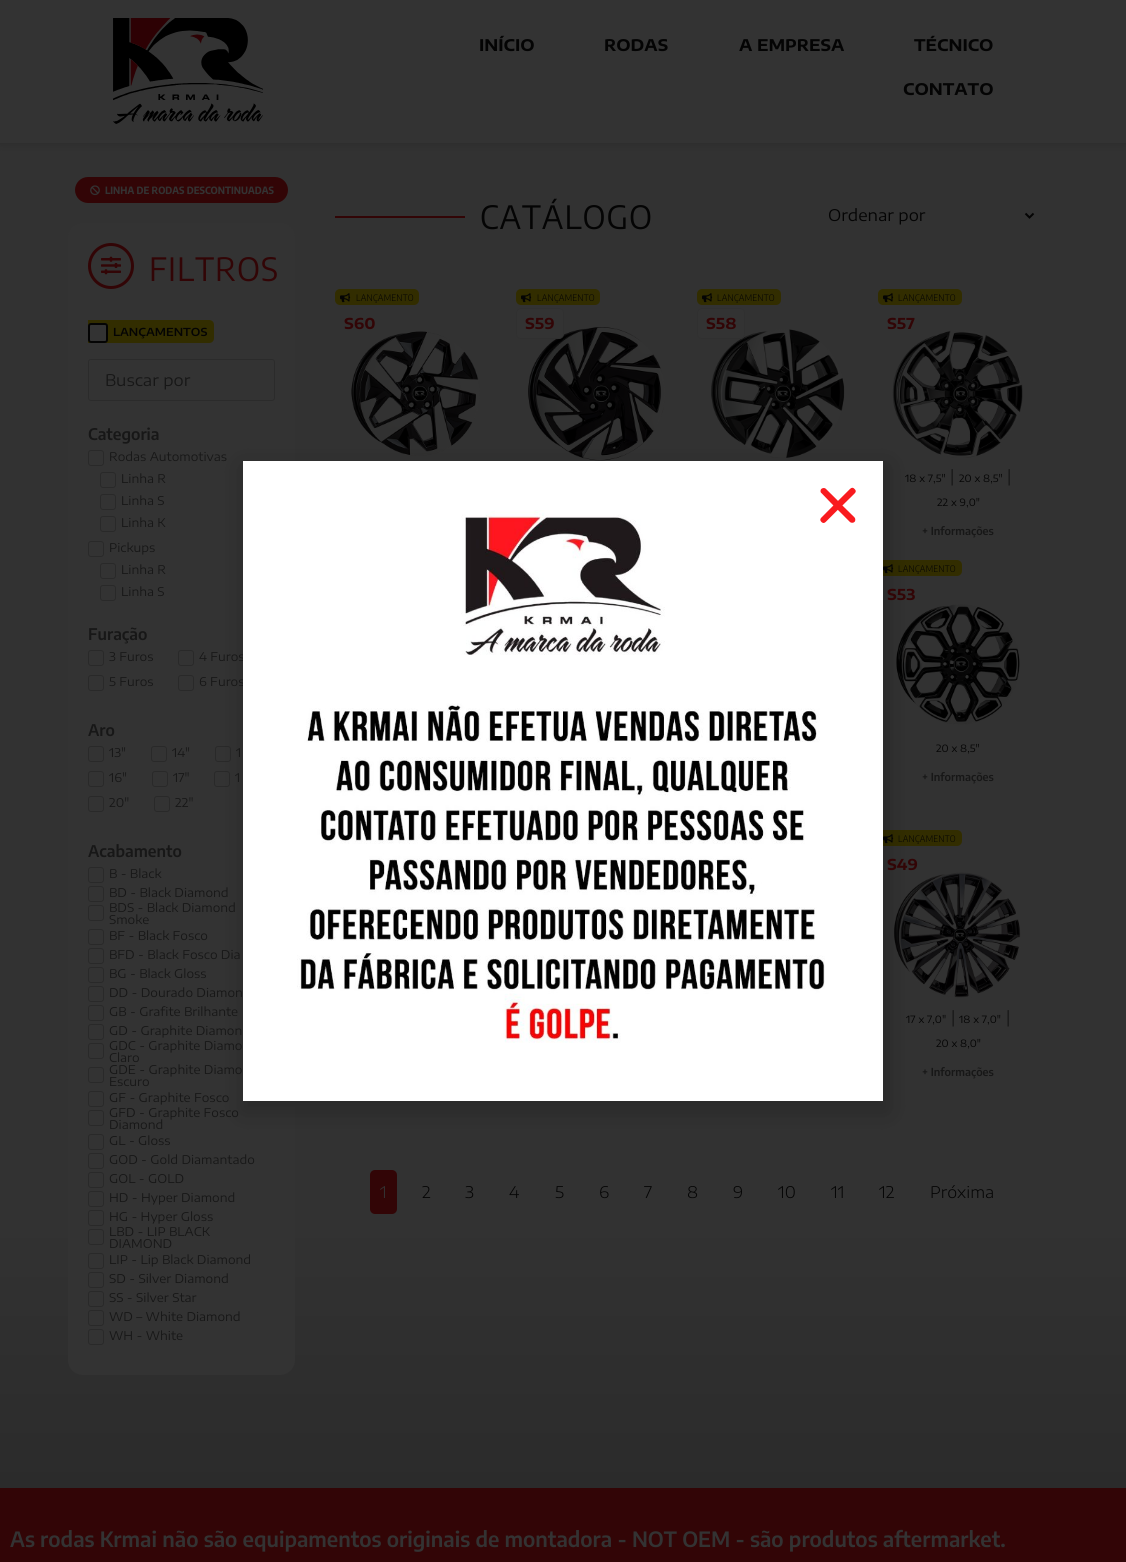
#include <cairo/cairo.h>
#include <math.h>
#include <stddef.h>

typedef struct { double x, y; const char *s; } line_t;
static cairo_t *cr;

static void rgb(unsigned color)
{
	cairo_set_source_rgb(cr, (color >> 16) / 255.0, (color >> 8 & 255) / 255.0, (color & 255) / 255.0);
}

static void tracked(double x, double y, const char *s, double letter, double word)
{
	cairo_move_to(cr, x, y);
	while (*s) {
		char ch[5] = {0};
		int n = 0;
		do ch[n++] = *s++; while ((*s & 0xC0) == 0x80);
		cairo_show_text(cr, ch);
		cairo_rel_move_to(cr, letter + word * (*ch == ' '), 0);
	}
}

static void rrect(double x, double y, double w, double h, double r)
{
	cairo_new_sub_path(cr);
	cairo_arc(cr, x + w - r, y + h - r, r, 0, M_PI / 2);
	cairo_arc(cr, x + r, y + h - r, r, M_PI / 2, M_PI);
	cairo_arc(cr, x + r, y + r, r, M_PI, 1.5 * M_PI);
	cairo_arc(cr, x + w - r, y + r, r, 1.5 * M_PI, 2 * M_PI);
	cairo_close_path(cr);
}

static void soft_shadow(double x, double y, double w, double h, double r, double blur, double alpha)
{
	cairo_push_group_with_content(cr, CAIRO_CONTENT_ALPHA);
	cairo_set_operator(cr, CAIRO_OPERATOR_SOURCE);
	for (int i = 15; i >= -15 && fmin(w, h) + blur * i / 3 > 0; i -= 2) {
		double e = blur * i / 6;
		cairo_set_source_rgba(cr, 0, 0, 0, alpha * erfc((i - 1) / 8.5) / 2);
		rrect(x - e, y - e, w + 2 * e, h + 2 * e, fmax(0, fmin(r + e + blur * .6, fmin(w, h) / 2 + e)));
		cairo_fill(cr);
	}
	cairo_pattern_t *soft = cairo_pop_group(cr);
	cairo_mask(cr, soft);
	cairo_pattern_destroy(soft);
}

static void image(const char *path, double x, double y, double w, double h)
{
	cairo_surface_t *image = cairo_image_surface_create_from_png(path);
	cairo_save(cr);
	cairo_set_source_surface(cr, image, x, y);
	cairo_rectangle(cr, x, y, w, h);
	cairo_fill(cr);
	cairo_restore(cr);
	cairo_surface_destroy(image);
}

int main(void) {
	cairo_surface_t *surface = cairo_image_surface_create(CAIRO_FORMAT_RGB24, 1126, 1562);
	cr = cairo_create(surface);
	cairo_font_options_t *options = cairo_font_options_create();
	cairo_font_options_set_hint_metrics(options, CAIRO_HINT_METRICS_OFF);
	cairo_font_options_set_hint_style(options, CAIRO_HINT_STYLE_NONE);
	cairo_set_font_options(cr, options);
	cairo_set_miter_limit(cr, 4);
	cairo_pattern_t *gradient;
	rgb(0xffffff);
	cairo_paint(cr);
	gradient = cairo_pattern_create_linear(563, 143, 563, 1488);
	cairo_pattern_add_color_stop_rgba(gradient, 0.8, 0.196, 0.196, 0.196, 1);
	cairo_pattern_add_color_stop_rgba(gradient, 1, 0.169, 0.169, 0.169, 1);
	cairo_set_source(cr, gradient);
	cairo_pattern_destroy(gradient);
	cairo_rectangle(cr, 0, 143, 1126, 1345);
	cairo_fill(cr);
	rgb(0x000000);
	soft_shadow(0, 0, 1126, 143, 0, 5, 0.18);
	rgb(0x333333);
	cairo_rectangle(cr, 0, 0, 1126, 143);
	cairo_fill(cr);
	image("img/1.png", 113, 18, 150, 106);
	rgb(0x320506);
	rrect(75, 177, 213, 26, 13);
	cairo_fill(cr);
	image("img/2.png", 90, 185, 10, 11);
	rgb(0x333333);
	rrect(68, 223, 227, 1152, 15);
	cairo_fill(cr);
	cairo_arc(cr, 111, 266, 21.5, 0, 2 * M_PI);
	rgb(0x320506);
	cairo_set_line_width(cr, 3);
	cairo_stroke(cr);
	image("img/3.png", 101, 256, 20, 19);
	rgb(0x322d00);
	cairo_new_path(cr);
	cairo_move_to(cr, 88, 320);
	cairo_line_to(cr, 209, 320);
	cairo_curve_to(cr, 212, 320, 214, 322, 214, 325);
	cairo_line_to(cr, 214, 338);
	cairo_curve_to(cr, 214, 341, 212, 343, 209, 343);
	cairo_line_to(cr, 88, 343);
	cairo_close_path(cr);
	cairo_fill(cr);
	rgb(0x333333);
	rrect(89, 324, 18, 18, 2);
	cairo_fill_preserve(cr);
	rgb(0x040404);
	cairo_set_line_width(cr, 2);
	cairo_stroke(cr);
	rrect(88.5, 359.5, 186, 41, 2.5);
	rgb(0x2b2b2b);
	cairo_set_line_width(cr, 1);
	cairo_stroke(cr);
	rrect(88.5, 450.5, 15, 15, 2.5);
	rgb(0x292929);
	cairo_stroke(cr);
	rrect(100.5, 472.5, 15, 15, 2.5);
	cairo_stroke(cr);
	rrect(100.5, 494.5, 15, 15, 2.5);
	cairo_stroke(cr);
	rrect(100.5, 516.5, 15, 15, 2.5);
	cairo_stroke(cr);
	rrect(88.5, 541.5, 15, 15, 2.5);
	cairo_stroke(cr);
	rrect(100.5, 563.5, 15, 15, 2.5);
	cairo_stroke(cr);
	rrect(100.5, 585.5, 15, 15, 2.5);
	cairo_stroke(cr);
	rrect(88.5, 650.5, 15, 15, 2.5);
	cairo_stroke(cr);
	rrect(178.5, 650.5, 15, 15, 2.5);
	cairo_stroke(cr);
	rrect(88.5, 675.5, 15, 15, 2.5);
	cairo_stroke(cr);
	rrect(178.5, 675.5, 15, 15, 2.5);
	cairo_stroke(cr);
	rrect(88.5, 746.5, 15, 15, 2.5);
	cairo_stroke(cr);
	rrect(151.5, 746.5, 15, 15, 2.5);
	cairo_stroke(cr);
	rrect(215.5, 746.5, 15, 15, 2.5);
	cairo_stroke(cr);
	rrect(88.5, 771.5, 15, 15, 2.5);
	cairo_stroke(cr);
	rrect(152.5, 771.5, 15, 15, 2.5);
	cairo_stroke(cr);
	rrect(214.5, 771.5, 15, 15, 2.5);
	cairo_stroke(cr);
	rrect(88.5, 796.5, 15, 15, 2.5);
	cairo_stroke(cr);
	rrect(154.5, 796.5, 15, 15, 2.5);
	cairo_stroke(cr);
	rrect(88.5, 867.5, 15, 15, 2.5);
	cairo_stroke(cr);
	rrect(88.5, 886.5, 15, 15, 2.5);
	cairo_stroke(cr);
	rrect(88.5, 905.5, 15, 15, 2.5);
	cairo_stroke(cr);
	rrect(88.5, 929.5, 15, 15, 2.5);
	cairo_stroke(cr);
	rrect(88.5, 948.5, 15, 15, 2.5);
	cairo_stroke(cr);
	rrect(88.5, 967.5, 15, 15, 2.5);
	cairo_stroke(cr);
	rrect(88.5, 986.5, 15, 15, 2.5);
	cairo_stroke(cr);
	rrect(88.5, 1005.5, 15, 15, 2.5);
	cairo_stroke(cr);
	rrect(88.5, 1024.5, 15, 15, 2.5);
	cairo_stroke(cr);
	rrect(88.5, 1043.5, 15, 15, 2.5);
	cairo_stroke(cr);
	rrect(88.5, 1067.5, 15, 15, 2.5);
	cairo_stroke(cr);
	rrect(88.5, 1091.5, 15, 15, 2.5);
	cairo_stroke(cr);
	rrect(88.5, 1110.5, 15, 15, 2.5);
	cairo_stroke(cr);
	rrect(88.5, 1134.5, 15, 15, 2.5);
	cairo_stroke(cr);
	rrect(88.5, 1153.5, 15, 15, 2.5);
	cairo_stroke(cr);
	rrect(88.5, 1172.5, 15, 15, 2.5);
	cairo_stroke(cr);
	rrect(88.5, 1191.5, 15, 15, 2.5);
	cairo_stroke(cr);
	rrect(88.5, 1210.5, 15, 15, 2.5);
	cairo_stroke(cr);
	rrect(88.5, 1229.5, 15, 15, 2.5);
	cairo_stroke(cr);
	rrect(88.5, 1253.5, 15, 15, 2.5);
	cairo_stroke(cr);
	rrect(88.5, 1272.5, 15, 15, 2.5);
	cairo_stroke(cr);
	rrect(88.5, 1291.5, 15, 15, 2.5);
	cairo_stroke(cr);
	rrect(88.5, 1310.5, 15, 15, 2.5);
	cairo_stroke(cr);
	rrect(88.5, 1329.5, 15, 15, 2.5);
	cairo_stroke(cr);
	rgb(0x320506);
	cairo_rectangle(cr, 335, 216, 130, 2);
	cairo_fill(cr);
	cairo_new_path(cr);
	cairo_move_to(cr, 1025.5, 213.5);
	cairo_line_to(cr, 1029.5, 217.5);
	cairo_line_to(cr, 1033.5, 213.5);
	rgb(0x040404);
	cairo_set_line_width(cr, 2);
	cairo_stroke(cr);
	rgb(0x322d00);
	rrect(335, 289, 84, 16, 5);
	cairo_fill(cr);
	image("img/4.png", 340, 293, 11, 10);
	image("img/5.png", 351, 331, 129, 125);
	rrect(516, 289, 84, 16, 5);
	cairo_fill(cr);
	image("img/4.png", 521, 293, 11, 10);
	image("img/6.png", 528, 327, 137, 134);
	rgb(0x333333);
	rrect(516.5, 308.5, 47, 30, 4.5);
	cairo_fill_preserve(cr);
	rgb(0x303030);
	cairo_set_line_width(cr, 1);
	cairo_stroke(cr);
	rgb(0x322d00);
	rrect(697, 289, 84, 16, 5);
	cairo_fill(cr);
	image("img/4.png", 702, 293, 11, 10);
	image("img/7.png", 711, 329, 134, 129);
	rgb(0x333333);
	rrect(697.5, 308.5, 47, 30, 4.5);
	cairo_fill_preserve(cr);
	rgb(0x303030);
	cairo_stroke(cr);
	rgb(0x322d00);
	rrect(878, 289, 84, 16, 5);
	cairo_fill(cr);
	image("img/4.png", 883, 293, 11, 10);
	image("img/8.png", 892, 330, 131, 128);
	rrect(878, 560, 84, 16, 5);
	cairo_fill(cr);
	image("img/4.png", 883, 564, 11, 10);
	image("img/9.png", 896, 604, 124, 121);
	rrect(878, 830, 84, 16, 5);
	cairo_fill(cr);
	image("img/4.png", 883, 834, 11, 10);
	image("img/10.png", 893, 872, 128, 126);
	rgb(0x320506);
	rrect(370, 1170, 27, 44, 5);
	cairo_fill(cr);
	rgb(0x000000);
	soft_shadow(242, 466, 646, 646, 0, 11.5, 0.2);
	rgb(0x320506);
	cairo_rectangle(cr, 0, 1488, 1126, 74);
	cairo_fill(cr);
	cairo_select_font_face(cr, "Encode Sans Expanded", CAIRO_FONT_SLANT_NORMAL, CAIRO_FONT_WEIGHT_BOLD);
	cairo_set_font_size(cr, 16);
	rgb(0x040404);
	{
		static const line_t items[] = {
			{479, 51, "INÍCIO"},
			{604, 51, "RODAS"},
			{739, 51, "A EMPRESA"},
			{914, 51, "TÉCNICO"},
			{903, 95, "CONTATO"},
		};
		for (size_t i = 0; i < sizeof items / sizeof *items; i++) {
			cairo_move_to(cr, items[i].x, items[i].y);
			cairo_show_text(cr, items[i].s);
		}
	}
	cairo_select_font_face(cr, "Encode Sans Semi Condensed", CAIRO_FONT_SLANT_NORMAL, CAIRO_FONT_WEIGHT_BOLD);
	cairo_set_font_size(cr, 10);
	rgb(0x333333);
	cairo_move_to(cr, 105, 194);
	cairo_show_text(cr, "LINHA DE RODAS DESCONTINUADAS");
	cairo_select_font_face(cr, "Encode Sans Condensed", CAIRO_FONT_SLANT_NORMAL, CAIRO_FONT_WEIGHT_NORMAL);
	cairo_set_font_size(cr, 32);
	rgb(0x320506);
	tracked(149, 281, "FILTROS", 1, 0);
	cairo_select_font_face(cr, "Encode Sans Expanded SemiBold", CAIRO_FONT_SLANT_NORMAL, CAIRO_FONT_WEIGHT_NORMAL);
	cairo_set_font_size(cr, 11);
	rgb(0x040404);
	cairo_move_to(cr, 113, 336);
	cairo_show_text(cr, "LANÇAMENTOS");
	cairo_select_font_face(cr, "Encode Sans Expanded", CAIRO_FONT_SLANT_NORMAL, CAIRO_FONT_WEIGHT_NORMAL);
	cairo_set_font_size(cr, 16);
	rgb(0x171717);
	cairo_move_to(cr, 105, 386);
	cairo_show_text(cr, "Buscar por");
	cairo_select_font_face(cr, "Encode Sans Condensed SemiBold", CAIRO_FONT_SLANT_NORMAL, CAIRO_FONT_WEIGHT_NORMAL);
	cairo_move_to(cr, 88, 440);
	cairo_show_text(cr, "Categoria");
	cairo_select_font_face(cr, "Encode Sans Expanded", CAIRO_FONT_SLANT_NORMAL, CAIRO_FONT_WEIGHT_NORMAL);
	cairo_set_font_size(cr, 12);
	{
		static const line_t items[] = {
			{109, 461, "Rodas Automotivas"},
			{121, 483, "Linha R"},
			{121, 505, "Linha S"},
			{121, 527, "Linha K"},
			{109, 552, "Pickups"},
			{121, 574, "Linha R"},
			{121, 596, "Linha S"},
		};
		for (size_t i = 0; i < sizeof items / sizeof *items; i++) {
			cairo_move_to(cr, items[i].x, items[i].y);
			cairo_show_text(cr, items[i].s);
		}
	}
	cairo_select_font_face(cr, "Encode Sans Condensed SemiBold", CAIRO_FONT_SLANT_NORMAL, CAIRO_FONT_WEIGHT_NORMAL);
	cairo_set_font_size(cr, 16);
	cairo_move_to(cr, 88, 640);
	cairo_show_text(cr, "Furação");
	cairo_select_font_face(cr, "Encode Sans Expanded", CAIRO_FONT_SLANT_NORMAL, CAIRO_FONT_WEIGHT_NORMAL);
	cairo_set_font_size(cr, 12);
	{
		static const line_t items[] = {
			{109, 661, "3 Furos"},
			{199, 661, "4 Furos"},
			{109, 686, "5 Furos"},
			{199, 686, "6 Furos"},
		};
		for (size_t i = 0; i < sizeof items / sizeof *items; i++) {
			cairo_move_to(cr, items[i].x, items[i].y);
			cairo_show_text(cr, items[i].s);
		}
	}
	cairo_select_font_face(cr, "Encode Sans Condensed SemiBold", CAIRO_FONT_SLANT_NORMAL, CAIRO_FONT_WEIGHT_NORMAL);
	cairo_set_font_size(cr, 16);
	cairo_move_to(cr, 88, 736);
	cairo_show_text(cr, "Aro");
	cairo_select_font_face(cr, "Encode Sans Expanded", CAIRO_FONT_SLANT_NORMAL, CAIRO_FONT_WEIGHT_NORMAL);
	cairo_set_font_size(cr, 12);
	{
		static const line_t items[] = {
			{109, 757, "13\""},
			{172, 757, "14\""},
			{236, 757, "1"},
			{109, 782, "16\""},
			{173, 782, "17\""},
			{235, 782, "1"},
			{109, 807, "20\""},
			{175, 807, "22\""},
		};
		for (size_t i = 0; i < sizeof items / sizeof *items; i++) {
			cairo_move_to(cr, items[i].x, items[i].y);
			cairo_show_text(cr, items[i].s);
		}
	}
	cairo_select_font_face(cr, "Encode Sans Condensed SemiBold", CAIRO_FONT_SLANT_NORMAL, CAIRO_FONT_WEIGHT_NORMAL);
	cairo_set_font_size(cr, 16);
	cairo_move_to(cr, 88, 857);
	cairo_show_text(cr, "Acabamento");
	cairo_select_font_face(cr, "Encode Sans Expanded", CAIRO_FONT_SLANT_NORMAL, CAIRO_FONT_WEIGHT_NORMAL);
	cairo_set_font_size(cr, 12);
	{
		static const line_t items[] = {
			{109, 878, "B - Black"},
			{109, 897, "BD - Black Diamond"},
			{109, 912, "BDS - Black Diamond"},
			{109, 924, "Smoke"},
			{109, 940, "BF - Black Fosco"},
			{109, 959, "BFD - Black Fosco Dia"},
			{109, 978, "BG - Black Gloss"},
			{109, 997, "DD - Dourado Diamon"},
			{109, 1016, "GB - Grafite Brilhante"},
			{109, 1035, "GD - Graphite Diamon"},
			{109, 1050, "GDC - Graphite Diamo"},
			{109, 1062, "Claro"},
			{109, 1074, "GDE - Graphite Diamo"},
			{109, 1086, "Escuro"},
			{109, 1102, "GF - Graphite Fosco"},
			{109, 1117, "GFD - Graphite Fosco"},
			{109, 1129, "Diamond"},
			{109, 1145, "GL - Gloss"},
			{109, 1164, "GOD - Gold Diamantado"},
			{109, 1183, "GOL - GOLD"},
			{109, 1202, "HD - Hyper Diamond"},
			{109, 1221, "HG - Hyper Gloss"},
			{109, 1236, "LBD - LIP BLACK"},
			{109, 1248, "DIAMOND"},
			{109, 1264, "LIP - Lip Black Diamond"},
			{109, 1283, "SD - Silver Diamond"},
			{109, 1302, "SS - Silver Star"},
			{109, 1321, "WD – White Diamond"},
			{109, 1340, "WH - White"},
		};
		for (size_t i = 0; i < sizeof items / sizeof *items; i++) {
			cairo_move_to(cr, items[i].x, items[i].y);
			cairo_show_text(cr, items[i].s);
		}
	}
	cairo_select_font_face(cr, "Encode Sans Condensed", CAIRO_FONT_SLANT_NORMAL, CAIRO_FONT_WEIGHT_NORMAL);
	cairo_set_font_size(cr, 32);
	rgb(0x040404);
	tracked(480, 229, "CATÁLOGO", 1, 0);
	cairo_select_font_face(cr, "Encode Sans Expanded", CAIRO_FONT_SLANT_NORMAL, CAIRO_FONT_WEIGHT_NORMAL);
	cairo_set_font_size(cr, 16);
	cairo_move_to(cr, 828, 221);
	cairo_show_text(cr, "Ordenar por");
	cairo_select_font_face(cr, "Encode Sans Semi Condensed Light", CAIRO_FONT_SLANT_NORMAL, CAIRO_FONT_WEIGHT_NORMAL);
	cairo_set_font_size(cr, 9);
	tracked(356, 301, "LANÇAMENTO", 0.25, 0);
	cairo_select_font_face(cr, "Encode Sans Expanded", CAIRO_FONT_SLANT_NORMAL, CAIRO_FONT_WEIGHT_BOLD);
	cairo_set_font_size(cr, 15);
	rgb(0x320506);
	cairo_move_to(cr, 344, 329);
	cairo_show_text(cr, "S60");
	cairo_select_font_face(cr, "Encode Sans Semi Condensed Light", CAIRO_FONT_SLANT_NORMAL, CAIRO_FONT_WEIGHT_NORMAL);
	cairo_set_font_size(cr, 9);
	rgb(0x040404);
	tracked(537, 301, "LANÇAMENTO", 0.25, 0);
	cairo_select_font_face(cr, "Encode Sans Expanded", CAIRO_FONT_SLANT_NORMAL, CAIRO_FONT_WEIGHT_BOLD);
	cairo_set_font_size(cr, 15);
	rgb(0x320506);
	cairo_move_to(cr, 525, 329);
	cairo_show_text(cr, "S59");
	cairo_select_font_face(cr, "Encode Sans Semi Condensed Light", CAIRO_FONT_SLANT_NORMAL, CAIRO_FONT_WEIGHT_NORMAL);
	cairo_set_font_size(cr, 9);
	rgb(0x040404);
	tracked(717, 301, "LANÇAMENTO", 0.25, 0);
	cairo_select_font_face(cr, "Encode Sans Expanded", CAIRO_FONT_SLANT_NORMAL, CAIRO_FONT_WEIGHT_BOLD);
	cairo_set_font_size(cr, 15);
	rgb(0x320506);
	cairo_move_to(cr, 706, 329);
	cairo_show_text(cr, "S58");
	cairo_select_font_face(cr, "Encode Sans Semi Condensed Light", CAIRO_FONT_SLANT_NORMAL, CAIRO_FONT_WEIGHT_NORMAL);
	cairo_set_font_size(cr, 9);
	rgb(0x040404);
	tracked(898, 301, "LANÇAMENTO", 0.25, 0);
	cairo_select_font_face(cr, "Encode Sans Expanded", CAIRO_FONT_SLANT_NORMAL, CAIRO_FONT_WEIGHT_BOLD);
	cairo_set_font_size(cr, 15);
	rgb(0x320506);
	cairo_move_to(cr, 887, 329);
	cairo_show_text(cr, "S57");
	cairo_select_font_face(cr, "Encode Sans Expanded", CAIRO_FONT_SLANT_NORMAL, CAIRO_FONT_WEIGHT_NORMAL);
	cairo_set_font_size(cr, 10);
	rgb(0x040404);
	cairo_move_to(cr, 905, 482);
	cairo_show_text(cr, "18 x 7,5\"");
	cairo_set_font_size(cr, 16);
	rgb(0x171717);
	cairo_move_to(cr, 950, 482);
	cairo_show_text(cr, "|");
	cairo_set_font_size(cr, 10);
	rgb(0x040404);
	cairo_move_to(cr, 959, 482);
	cairo_show_text(cr, "20 x 8,5\"");
	cairo_set_font_size(cr, 16);
	rgb(0x171717);
	cairo_move_to(cr, 1007, 482);
	cairo_show_text(cr, "|");
	cairo_set_font_size(cr, 10);
	rgb(0x040404);
	cairo_move_to(cr, 937, 506);
	cairo_show_text(cr, "22 x 9,0\"");
	cairo_select_font_face(cr, "Encode Sans Condensed SemiBold", CAIRO_FONT_SLANT_NORMAL, CAIRO_FONT_WEIGHT_NORMAL);
	cairo_set_font_size(cr, 11);
	rgb(0x171717);
	cairo_move_to(cr, 922, 535);
	cairo_show_text(cr, "+ Informações");
	cairo_select_font_face(cr, "Encode Sans Semi Condensed Light", CAIRO_FONT_SLANT_NORMAL, CAIRO_FONT_WEIGHT_NORMAL);
	cairo_set_font_size(cr, 9);
	rgb(0x040404);
	tracked(898, 572, "LANÇAMENTO", 0.25, 0);
	cairo_select_font_face(cr, "Encode Sans Expanded", CAIRO_FONT_SLANT_NORMAL, CAIRO_FONT_WEIGHT_BOLD);
	cairo_set_font_size(cr, 15);
	rgb(0x320506);
	cairo_move_to(cr, 887, 600);
	cairo_show_text(cr, "S53");
	cairo_select_font_face(cr, "Encode Sans Expanded", CAIRO_FONT_SLANT_NORMAL, CAIRO_FONT_WEIGHT_NORMAL);
	cairo_set_font_size(cr, 10);
	rgb(0x040404);
	cairo_move_to(cr, 936, 752);
	cairo_show_text(cr, "20 x 8,5\"");
	cairo_select_font_face(cr, "Encode Sans Condensed SemiBold", CAIRO_FONT_SLANT_NORMAL, CAIRO_FONT_WEIGHT_NORMAL);
	cairo_set_font_size(cr, 11);
	rgb(0x171717);
	cairo_move_to(cr, 922, 781);
	cairo_show_text(cr, "+ Informações");
	cairo_select_font_face(cr, "Encode Sans Semi Condensed Light", CAIRO_FONT_SLANT_NORMAL, CAIRO_FONT_WEIGHT_NORMAL);
	cairo_set_font_size(cr, 9);
	rgb(0x040404);
	tracked(898, 842, "LANÇAMENTO", 0.25, 0);
	cairo_select_font_face(cr, "Encode Sans Expanded", CAIRO_FONT_SLANT_NORMAL, CAIRO_FONT_WEIGHT_BOLD);
	cairo_set_font_size(cr, 15);
	rgb(0x320506);
	cairo_move_to(cr, 887, 870);
	cairo_show_text(cr, "S49");
	cairo_select_font_face(cr, "Encode Sans Expanded", CAIRO_FONT_SLANT_NORMAL, CAIRO_FONT_WEIGHT_NORMAL);
	cairo_set_font_size(cr, 10);
	rgb(0x040404);
	cairo_move_to(cr, 906, 1023);
	cairo_show_text(cr, "17 x 7,0\"");
	cairo_set_font_size(cr, 16);
	rgb(0x171717);
	cairo_move_to(cr, 951, 1023);
	cairo_show_text(cr, "|");
	cairo_set_font_size(cr, 10);
	rgb(0x040404);
	cairo_move_to(cr, 959, 1023);
	cairo_show_text(cr, "18 x 7,0\"");
	cairo_set_font_size(cr, 16);
	rgb(0x171717);
	cairo_move_to(cr, 1006, 1023);
	cairo_show_text(cr, "|");
	cairo_set_font_size(cr, 10);
	rgb(0x040404);
	cairo_move_to(cr, 936, 1047);
	cairo_show_text(cr, "20 x 8,0\"");
	cairo_select_font_face(cr, "Encode Sans Condensed SemiBold", CAIRO_FONT_SLANT_NORMAL, CAIRO_FONT_WEIGHT_NORMAL);
	cairo_set_font_size(cr, 11);
	rgb(0x171717);
	cairo_move_to(cr, 922, 1076);
	cairo_show_text(cr, "+ Informações");
	cairo_select_font_face(cr, "Encode Sans Expanded Light", CAIRO_FONT_SLANT_NORMAL, CAIRO_FONT_WEIGHT_NORMAL);
	cairo_set_font_size(cr, 16);
	rgb(0x333333);
	cairo_move_to(cr, 380, 1198);
	cairo_show_text(cr, "1");
	rgb(0x040404);
	{
		static const line_t items[] = {
			{422, 1198, "2"},
			{465, 1198, "3"},
			{509, 1198, "4"},
			{555, 1198, "5"},
			{599, 1198, "6"},
			{644, 1198, "7"},
			{687, 1198, "8"},
			{733, 1198, "9"},
			{778, 1198, "10"},
			{831, 1198, "11"},
			{879, 1198, "12"},
			{930, 1198, "Próxima"},
		};
		for (size_t i = 0; i < sizeof items / sizeof *items; i++) {
			cairo_move_to(cr, items[i].x, items[i].y);
			cairo_show_text(cr, items[i].s);
		}
	}
	rgb(0xffffff);
	cairo_rectangle(cr, 243, 461, 640, 640);
	cairo_fill(cr);
	image("img/12.png", 297, 510, 528, 533);
	image("img/11.png", 820, 487, 36, 36);
	cairo_select_font_face(cr, "Encode Sans Condensed SemiBold", CAIRO_FONT_SLANT_NORMAL, CAIRO_FONT_WEIGHT_NORMAL);
	cairo_set_font_size(cr, 21);
	rgb(0x333333);
	cairo_move_to(cr, 10, 1547);
	cairo_show_text(cr, "As rodas Krmai não são equipamentos originais de montadora - NOT OEM - são produtos aftermarket.");
	cairo_surface_write_to_png(surface, "page.png");
	cairo_font_options_destroy(options);
	cairo_destroy(cr);
	cairo_surface_destroy(surface);
	return 0;
}
